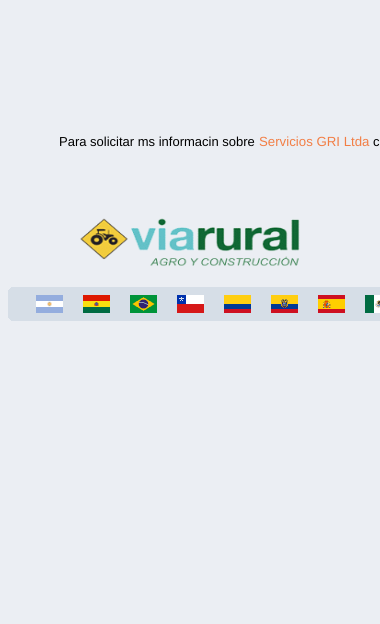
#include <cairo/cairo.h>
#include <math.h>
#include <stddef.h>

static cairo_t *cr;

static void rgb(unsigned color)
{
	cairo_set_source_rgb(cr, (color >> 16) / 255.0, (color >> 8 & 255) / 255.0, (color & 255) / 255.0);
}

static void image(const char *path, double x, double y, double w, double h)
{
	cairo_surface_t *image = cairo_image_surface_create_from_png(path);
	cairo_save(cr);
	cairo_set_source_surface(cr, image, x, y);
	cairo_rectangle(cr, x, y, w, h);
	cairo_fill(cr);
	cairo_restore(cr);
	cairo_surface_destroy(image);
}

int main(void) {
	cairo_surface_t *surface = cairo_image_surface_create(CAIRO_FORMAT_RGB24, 380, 624);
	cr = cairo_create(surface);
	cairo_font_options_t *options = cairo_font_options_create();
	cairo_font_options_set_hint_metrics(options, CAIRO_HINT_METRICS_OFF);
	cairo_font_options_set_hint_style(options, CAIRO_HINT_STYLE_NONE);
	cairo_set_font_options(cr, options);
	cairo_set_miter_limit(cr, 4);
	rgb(0xebeef3);
	cairo_paint(cr);
	image("img/1.png", 80, 218, 220, 48);
	image("img/2.png", 8, 287, 372, 34);
	cairo_select_font_face(cr, "Liberation Sans", CAIRO_FONT_SLANT_NORMAL, CAIRO_FONT_WEIGHT_NORMAL);
	cairo_set_font_size(cr, 13);
	rgb(0x000000);
	cairo_move_to(cr, 59, 146);
	cairo_show_text(cr, "Para solicitar ms informacin sobre");
	cairo_set_font_size(cr, 13.25);
	rgb(0xf27e45);
	cairo_move_to(cr, 259, 146);
	cairo_show_text(cr, "Servicios GRI Ltda");
	cairo_set_font_size(cr, 13);
	rgb(0x000000);
	cairo_move_to(cr, 373, 146);
	cairo_show_text(cr, "c");
	cairo_surface_write_to_png(surface, "page.png");
	cairo_font_options_destroy(options);
	cairo_destroy(cr);
	cairo_surface_destroy(surface);
	return 0;
}
